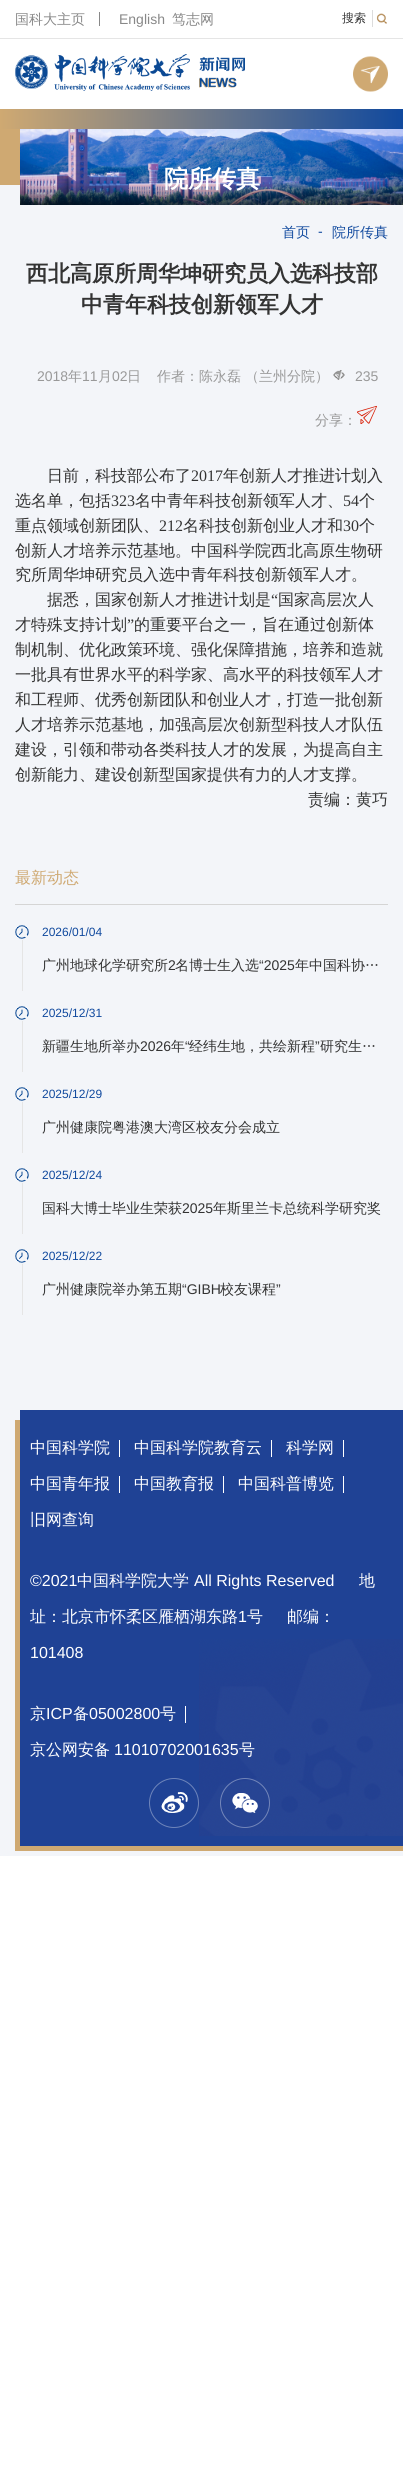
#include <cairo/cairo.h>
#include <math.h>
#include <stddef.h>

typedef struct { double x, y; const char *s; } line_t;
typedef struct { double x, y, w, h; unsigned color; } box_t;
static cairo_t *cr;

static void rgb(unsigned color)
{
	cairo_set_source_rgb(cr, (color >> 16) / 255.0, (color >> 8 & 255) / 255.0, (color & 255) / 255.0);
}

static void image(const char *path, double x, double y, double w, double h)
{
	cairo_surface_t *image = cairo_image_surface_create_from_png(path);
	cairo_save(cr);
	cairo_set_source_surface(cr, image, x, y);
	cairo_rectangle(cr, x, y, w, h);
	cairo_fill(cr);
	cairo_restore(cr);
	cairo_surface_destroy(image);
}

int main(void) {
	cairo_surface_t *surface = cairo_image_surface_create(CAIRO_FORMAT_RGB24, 403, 2489);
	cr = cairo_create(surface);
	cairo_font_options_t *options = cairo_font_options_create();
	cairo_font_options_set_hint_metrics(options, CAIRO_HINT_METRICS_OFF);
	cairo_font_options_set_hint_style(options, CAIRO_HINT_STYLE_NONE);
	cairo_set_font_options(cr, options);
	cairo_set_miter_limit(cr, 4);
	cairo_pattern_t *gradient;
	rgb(0xffffff);
	cairo_paint(cr);
	rgb(0xe5e5e5);
	cairo_rectangle(cr, 0, 38, 403, 1);
	cairo_fill(cr);
	rgb(0x888888);
	cairo_rectangle(cr, 99, 12, 1, 14);
	cairo_fill(cr);
	image("img/1.png", 376, 13, 11, 11);
	rgb(0xdcdcdc);
	cairo_rectangle(cr, 372, 10, 1, 17);
	cairo_fill(cr);
	image("img/2.png", 15, 54, 175, 37);
	image("img/3.png", 199, 57, 46, 31);
	image("img/4.png", 353, 56, 35, 36);
	rgb(0xf3f5f9);
	cairo_rectangle(cr, 0, 185, 20, 20);
	cairo_fill(cr);
	gradient = cairo_pattern_create_linear(0, 119, 403, 119);
	cairo_pattern_add_color_stop_rgba(gradient, 0, 0.812, 0.663, 0.447, 1);
	cairo_pattern_add_color_stop_rgba(gradient, 1, 0.063, 0.286, 0.62, 1);
	cairo_set_source(cr, gradient);
	cairo_pattern_destroy(gradient);
	cairo_rectangle(cr, 0, 109, 403, 20);
	cairo_fill(cr);
	rgb(0xcfa972);
	cairo_rectangle(cr, 0, 129, 20, 56);
	cairo_fill(cr);
	image("img/5.png", 20, 129, 383, 76);
	rgb(0xf3f5f9);
	cairo_rectangle(cr, 0, 205, 403, 1651);
	cairo_fill(cr);
	image("img/6.png", 333, 370, 12, 10);
	image("img/7.png", 357, 405, 20, 19);
	rgb(0xd5d5d5);
	cairo_rectangle(cr, 15, 904, 373, 1);
	cairo_fill(cr);
	image("img/8.png", 15, 925, 14, 14);
	rgb(0xe5e5e5);
	cairo_rectangle(cr, 22, 940, 1, 51);
	cairo_fill(cr);
	image("img/8.png", 15, 1006, 14, 14);
	cairo_rectangle(cr, 22, 1021, 1, 51);
	cairo_fill(cr);
	image("img/8.png", 15, 1087, 14, 14);
	cairo_rectangle(cr, 22, 1102, 1, 51);
	cairo_fill(cr);
	image("img/8.png", 15, 1168, 14, 14);
	cairo_rectangle(cr, 22, 1183, 1, 51);
	cairo_fill(cr);
	image("img/8.png", 15, 1249, 14, 14);
	{
		static const box_t items[] = {
			{22, 1264, 1, 51, 0xe5e5e5},
			{15, 1420, 388, 431, 0xcfa972},
			{20, 1410, 383, 436, 0x1f4295},
			{119, 1440, 1, 17, 0xffffff},
			{271, 1440, 1, 17, 0xffffff},
			{343, 1440, 1, 17, 0xffffff},
			{119, 1476, 1, 17, 0xffffff},
			{223, 1476, 1, 17, 0xffffff},
			{343, 1476, 1, 17, 0xffffff},
			{185, 1706, 1, 17, 0xffffff},
		};
		for (size_t i = 0; i < sizeof items / sizeof *items; i++) {
			rgb(items[i].color);
			cairo_rectangle(cr, items[i].x, items[i].y, items[i].w, items[i].h);
			cairo_fill(cr);
		}
	}
	image("img/9.png", 149, 1778, 50, 50);
	image("img/11.png", 199, 1639, 204, 197);
	image("img/10.png", 220, 1778, 50, 50);
	cairo_select_font_face(cr, "WenQuanYi Zen Hei Medium", CAIRO_FONT_SLANT_NORMAL, CAIRO_FONT_WEIGHT_NORMAL);
	cairo_set_font_size(cr, 14);
	rgb(0x888888);
	cairo_move_to(cr, 15, 24);
	cairo_show_text(cr, "国科大主页");
	cairo_select_font_face(cr, "Liberation Sans", CAIRO_FONT_SLANT_NORMAL, CAIRO_FONT_WEIGHT_NORMAL);
	cairo_move_to(cr, 119, 24);
	cairo_show_text(cr, "English");
	cairo_select_font_face(cr, "WenQuanYi Zen Hei Medium", CAIRO_FONT_SLANT_NORMAL, CAIRO_FONT_WEIGHT_NORMAL);
	cairo_move_to(cr, 172, 24);
	cairo_show_text(cr, "笃志网");
	cairo_set_font_size(cr, 12);
	rgb(0x333333);
	cairo_move_to(cr, 342, 22);
	cairo_show_text(cr, "搜索");
	cairo_select_font_face(cr, "WenQuanYi Zen Hei", CAIRO_FONT_SLANT_NORMAL, CAIRO_FONT_WEIGHT_BOLD);
	cairo_set_font_size(cr, 24);
	rgb(0xffffff);
	cairo_move_to(cr, 164, 187);
	cairo_show_text(cr, "院所传真");
	cairo_select_font_face(cr, "WenQuanYi Zen Hei Medium", CAIRO_FONT_SLANT_NORMAL, CAIRO_FONT_WEIGHT_NORMAL);
	cairo_set_font_size(cr, 14);
	rgb(0x10499e);
	cairo_move_to(cr, 282, 237);
	cairo_show_text(cr, "首页");
	cairo_select_font_face(cr, "Liberation Sans", CAIRO_FONT_SLANT_NORMAL, CAIRO_FONT_WEIGHT_NORMAL);
	cairo_move_to(cr, 318, 236);
	cairo_show_text(cr, "-");
	cairo_select_font_face(cr, "WenQuanYi Zen Hei Medium", CAIRO_FONT_SLANT_NORMAL, CAIRO_FONT_WEIGHT_NORMAL);
	cairo_move_to(cr, 332, 237);
	cairo_show_text(cr, "院所传真");
	cairo_select_font_face(cr, "WenQuanYi Zen Hei", CAIRO_FONT_SLANT_NORMAL, CAIRO_FONT_WEIGHT_BOLD);
	cairo_set_font_size(cr, 22);
	rgb(0x333333);
	cairo_move_to(cr, 26, 281);
	cairo_show_text(cr, "西北高原所周华坤研究员入选科技部");
	cairo_move_to(cr, 81, 312);
	cairo_show_text(cr, "中青年科技创新领军人才");
	cairo_select_font_face(cr, "Liberation Sans", CAIRO_FONT_SLANT_NORMAL, CAIRO_FONT_WEIGHT_NORMAL);
	cairo_set_font_size(cr, 14);
	rgb(0x999999);
	cairo_move_to(cr, 37, 381);
	cairo_show_text(cr, "2018");
	cairo_select_font_face(cr, "WenQuanYi Zen Hei Medium", CAIRO_FONT_SLANT_NORMAL, CAIRO_FONT_WEIGHT_NORMAL);
	cairo_move_to(cr, 68, 381);
	cairo_show_text(cr, "年");
	cairo_select_font_face(cr, "Liberation Sans", CAIRO_FONT_SLANT_NORMAL, CAIRO_FONT_WEIGHT_NORMAL);
	cairo_move_to(cr, 82, 381);
	cairo_show_text(cr, "11");
	cairo_select_font_face(cr, "WenQuanYi Zen Hei Medium", CAIRO_FONT_SLANT_NORMAL, CAIRO_FONT_WEIGHT_NORMAL);
	cairo_move_to(cr, 98, 381);
	cairo_show_text(cr, "月");
	cairo_select_font_face(cr, "Liberation Sans", CAIRO_FONT_SLANT_NORMAL, CAIRO_FONT_WEIGHT_NORMAL);
	cairo_move_to(cr, 112, 381);
	cairo_show_text(cr, "02");
	cairo_select_font_face(cr, "WenQuanYi Zen Hei Medium", CAIRO_FONT_SLANT_NORMAL, CAIRO_FONT_WEIGHT_NORMAL);
	{
		static const line_t items[] = {
			{127, 381, "日"},
			{157, 381, "作者：陈永磊"},
			{245, 381, "（兰州分院）"},
		};
		for (size_t i = 0; i < sizeof items / sizeof *items; i++) {
			cairo_move_to(cr, items[i].x, items[i].y);
			cairo_show_text(cr, items[i].s);
		}
	}
	cairo_select_font_face(cr, "Liberation Sans", CAIRO_FONT_SLANT_NORMAL, CAIRO_FONT_WEIGHT_NORMAL);
	cairo_move_to(cr, 355, 381);
	cairo_show_text(cr, "235");
	cairo_select_font_face(cr, "WenQuanYi Zen Hei Medium", CAIRO_FONT_SLANT_NORMAL, CAIRO_FONT_WEIGHT_NORMAL);
	cairo_move_to(cr, 315, 425);
	cairo_show_text(cr, "分享：");
	cairo_set_font_size(cr, 16);
	rgb(0x333333);
	cairo_move_to(cr, 47, 481);
	cairo_show_text(cr, "日前，科技部公布了");
	cairo_select_font_face(cr, "Liberation Serif", CAIRO_FONT_SLANT_NORMAL, CAIRO_FONT_WEIGHT_NORMAL);
	cairo_move_to(cr, 191, 481);
	cairo_show_text(cr, "2017");
	cairo_select_font_face(cr, "WenQuanYi Zen Hei Medium", CAIRO_FONT_SLANT_NORMAL, CAIRO_FONT_WEIGHT_NORMAL);
	cairo_move_to(cr, 223, 481);
	cairo_show_text(cr, "年创新人才推进计划入");
	cairo_move_to(cr, 15, 506);
	cairo_show_text(cr, "选名单，包括");
	cairo_select_font_face(cr, "Liberation Serif", CAIRO_FONT_SLANT_NORMAL, CAIRO_FONT_WEIGHT_NORMAL);
	cairo_move_to(cr, 111, 506);
	cairo_show_text(cr, "323");
	cairo_select_font_face(cr, "WenQuanYi Zen Hei Medium", CAIRO_FONT_SLANT_NORMAL, CAIRO_FONT_WEIGHT_NORMAL);
	cairo_move_to(cr, 135, 506);
	cairo_show_text(cr, "名中青年科技创新领军人才、");
	cairo_select_font_face(cr, "Liberation Serif", CAIRO_FONT_SLANT_NORMAL, CAIRO_FONT_WEIGHT_NORMAL);
	cairo_move_to(cr, 343, 506);
	cairo_show_text(cr, "54");
	cairo_select_font_face(cr, "WenQuanYi Zen Hei Medium", CAIRO_FONT_SLANT_NORMAL, CAIRO_FONT_WEIGHT_NORMAL);
	cairo_move_to(cr, 359, 506);
	cairo_show_text(cr, "个");
	cairo_move_to(cr, 15, 531);
	cairo_show_text(cr, "重点领域创新团队、");
	cairo_select_font_face(cr, "Liberation Serif", CAIRO_FONT_SLANT_NORMAL, CAIRO_FONT_WEIGHT_NORMAL);
	cairo_move_to(cr, 159, 531);
	cairo_show_text(cr, "212");
	cairo_select_font_face(cr, "WenQuanYi Zen Hei Medium", CAIRO_FONT_SLANT_NORMAL, CAIRO_FONT_WEIGHT_NORMAL);
	cairo_move_to(cr, 183, 531);
	cairo_show_text(cr, "名科技创新创业人才和");
	cairo_select_font_face(cr, "Liberation Serif", CAIRO_FONT_SLANT_NORMAL, CAIRO_FONT_WEIGHT_NORMAL);
	cairo_move_to(cr, 343, 531);
	cairo_show_text(cr, "30");
	cairo_select_font_face(cr, "WenQuanYi Zen Hei Medium", CAIRO_FONT_SLANT_NORMAL, CAIRO_FONT_WEIGHT_NORMAL);
	{
		static const line_t items[] = {
			{359, 531, "个"},
			{15, 556, "创新人才培养示范基地。中国科学院西北高原生物研"},
			{15, 580, "究所周华坤研究员入选中青年科技创新领军人才。"},
			{47, 605, "据悉，国家创新人才推进计划是"},
		};
		for (size_t i = 0; i < sizeof items / sizeof *items; i++) {
			cairo_move_to(cr, items[i].x, items[i].y);
			cairo_show_text(cr, items[i].s);
		}
	}
	cairo_select_font_face(cr, "Liberation Serif", CAIRO_FONT_SLANT_NORMAL, CAIRO_FONT_WEIGHT_NORMAL);
	cairo_move_to(cr, 271, 605);
	cairo_show_text(cr, "“");
	cairo_select_font_face(cr, "WenQuanYi Zen Hei Medium", CAIRO_FONT_SLANT_NORMAL, CAIRO_FONT_WEIGHT_NORMAL);
	cairo_move_to(cr, 278, 605);
	cairo_show_text(cr, "国家高层次人");
	cairo_move_to(cr, 15, 630);
	cairo_show_text(cr, "才特殊支持计划");
	cairo_select_font_face(cr, "Liberation Serif", CAIRO_FONT_SLANT_NORMAL, CAIRO_FONT_WEIGHT_NORMAL);
	cairo_move_to(cr, 127, 630);
	cairo_show_text(cr, "”");
	cairo_select_font_face(cr, "WenQuanYi Zen Hei Medium", CAIRO_FONT_SLANT_NORMAL, CAIRO_FONT_WEIGHT_NORMAL);
	{
		static const line_t items[] = {
			{134, 630, "的重要平台之一，旨在通过创新体"},
			{15, 655, "制机制、优化政策环境、强化保障措施，培养和造就"},
			{15, 680, "一批具有世界水平的科学家、高水平的科技领军人才"},
			{15, 705, "和工程师、优秀创新团队和创业人才，打造一批创新"},
			{15, 730, "人才培养示范基地，加强高层次创新型科技人才队伍"},
			{15, 755, "建设，引领和带动各类科技人才的发展，为提高自主"},
			{15, 780, "创新能力、建设创新型国家提供有力的人才支撑。"},
			{308, 805, "责编：黄巧"},
		};
		for (size_t i = 0; i < sizeof items / sizeof *items; i++) {
			cairo_move_to(cr, items[i].x, items[i].y);
			cairo_show_text(cr, items[i].s);
		}
	}
	rgb(0xcfa972);
	cairo_move_to(cr, 15, 883);
	cairo_show_text(cr, "最新动态");
	cairo_select_font_face(cr, "Liberation Sans", CAIRO_FONT_SLANT_NORMAL, CAIRO_FONT_WEIGHT_NORMAL);
	cairo_set_font_size(cr, 12);
	rgb(0x10499e);
	cairo_move_to(cr, 42, 936);
	cairo_show_text(cr, "2026/01/04");
	cairo_select_font_face(cr, "WenQuanYi Zen Hei Medium", CAIRO_FONT_SLANT_NORMAL, CAIRO_FONT_WEIGHT_NORMAL);
	cairo_set_font_size(cr, 14);
	rgb(0x333333);
	cairo_move_to(cr, 42, 970);
	cairo_show_text(cr, "广州地球化学研究所");
	cairo_select_font_face(cr, "Liberation Sans", CAIRO_FONT_SLANT_NORMAL, CAIRO_FONT_WEIGHT_NORMAL);
	cairo_move_to(cr, 168, 970);
	cairo_show_text(cr, "2");
	cairo_select_font_face(cr, "WenQuanYi Zen Hei Medium", CAIRO_FONT_SLANT_NORMAL, CAIRO_FONT_WEIGHT_NORMAL);
	cairo_move_to(cr, 175, 970);
	cairo_show_text(cr, "名博士生入选");
	cairo_select_font_face(cr, "Liberation Sans", CAIRO_FONT_SLANT_NORMAL, CAIRO_FONT_WEIGHT_NORMAL);
	cairo_move_to(cr, 259, 970);
	cairo_show_text(cr, "“2025");
	cairo_select_font_face(cr, "WenQuanYi Zen Hei Medium", CAIRO_FONT_SLANT_NORMAL, CAIRO_FONT_WEIGHT_NORMAL);
	cairo_move_to(cr, 295, 970);
	cairo_show_text(cr, "年中国科协…");
	cairo_select_font_face(cr, "Liberation Sans", CAIRO_FONT_SLANT_NORMAL, CAIRO_FONT_WEIGHT_NORMAL);
	cairo_set_font_size(cr, 12);
	rgb(0x10499e);
	cairo_move_to(cr, 42, 1017);
	cairo_show_text(cr, "2025/12/31");
	cairo_select_font_face(cr, "WenQuanYi Zen Hei Medium", CAIRO_FONT_SLANT_NORMAL, CAIRO_FONT_WEIGHT_NORMAL);
	cairo_set_font_size(cr, 14);
	rgb(0x333333);
	cairo_move_to(cr, 42, 1051);
	cairo_show_text(cr, "新疆生地所举办");
	cairo_select_font_face(cr, "Liberation Sans", CAIRO_FONT_SLANT_NORMAL, CAIRO_FONT_WEIGHT_NORMAL);
	cairo_move_to(cr, 140, 1051);
	cairo_show_text(cr, "2026");
	cairo_select_font_face(cr, "WenQuanYi Zen Hei Medium", CAIRO_FONT_SLANT_NORMAL, CAIRO_FONT_WEIGHT_NORMAL);
	cairo_move_to(cr, 171, 1051);
	cairo_show_text(cr, "年");
	cairo_select_font_face(cr, "Liberation Sans", CAIRO_FONT_SLANT_NORMAL, CAIRO_FONT_WEIGHT_NORMAL);
	cairo_move_to(cr, 185, 1051);
	cairo_show_text(cr, "“");
	cairo_select_font_face(cr, "WenQuanYi Zen Hei Medium", CAIRO_FONT_SLANT_NORMAL, CAIRO_FONT_WEIGHT_NORMAL);
	cairo_move_to(cr, 189, 1051);
	cairo_show_text(cr, "经纬生地，共绘新程");
	cairo_select_font_face(cr, "Liberation Sans", CAIRO_FONT_SLANT_NORMAL, CAIRO_FONT_WEIGHT_NORMAL);
	cairo_move_to(cr, 315, 1051);
	cairo_show_text(cr, "”");
	cairo_select_font_face(cr, "WenQuanYi Zen Hei Medium", CAIRO_FONT_SLANT_NORMAL, CAIRO_FONT_WEIGHT_NORMAL);
	cairo_move_to(cr, 320, 1051);
	cairo_show_text(cr, "研究生…");
	cairo_select_font_face(cr, "Liberation Sans", CAIRO_FONT_SLANT_NORMAL, CAIRO_FONT_WEIGHT_NORMAL);
	cairo_set_font_size(cr, 12);
	rgb(0x10499e);
	cairo_move_to(cr, 42, 1098);
	cairo_show_text(cr, "2025/12/29");
	cairo_select_font_face(cr, "WenQuanYi Zen Hei Medium", CAIRO_FONT_SLANT_NORMAL, CAIRO_FONT_WEIGHT_NORMAL);
	cairo_set_font_size(cr, 14);
	rgb(0x333333);
	cairo_move_to(cr, 42, 1132);
	cairo_show_text(cr, "广州健康院粤港澳大湾区校友分会成立");
	cairo_select_font_face(cr, "Liberation Sans", CAIRO_FONT_SLANT_NORMAL, CAIRO_FONT_WEIGHT_NORMAL);
	cairo_set_font_size(cr, 12);
	rgb(0x10499e);
	cairo_move_to(cr, 42, 1179);
	cairo_show_text(cr, "2025/12/24");
	cairo_select_font_face(cr, "WenQuanYi Zen Hei Medium", CAIRO_FONT_SLANT_NORMAL, CAIRO_FONT_WEIGHT_NORMAL);
	cairo_set_font_size(cr, 14);
	rgb(0x333333);
	cairo_move_to(cr, 42, 1213);
	cairo_show_text(cr, "国科大博士毕业生荣获");
	cairo_select_font_face(cr, "Liberation Sans", CAIRO_FONT_SLANT_NORMAL, CAIRO_FONT_WEIGHT_NORMAL);
	cairo_move_to(cr, 182, 1213);
	cairo_show_text(cr, "2025");
	cairo_select_font_face(cr, "WenQuanYi Zen Hei Medium", CAIRO_FONT_SLANT_NORMAL, CAIRO_FONT_WEIGHT_NORMAL);
	cairo_move_to(cr, 213, 1213);
	cairo_show_text(cr, "年斯里兰卡总统科学研究奖");
	cairo_select_font_face(cr, "Liberation Sans", CAIRO_FONT_SLANT_NORMAL, CAIRO_FONT_WEIGHT_NORMAL);
	cairo_set_font_size(cr, 12);
	rgb(0x10499e);
	cairo_move_to(cr, 42, 1260);
	cairo_show_text(cr, "2025/12/22");
	cairo_select_font_face(cr, "WenQuanYi Zen Hei Medium", CAIRO_FONT_SLANT_NORMAL, CAIRO_FONT_WEIGHT_NORMAL);
	cairo_set_font_size(cr, 14);
	rgb(0x333333);
	cairo_move_to(cr, 42, 1294);
	cairo_show_text(cr, "广州健康院举办第五期");
	cairo_select_font_face(cr, "Liberation Sans", CAIRO_FONT_SLANT_NORMAL, CAIRO_FONT_WEIGHT_NORMAL);
	cairo_move_to(cr, 182, 1294);
	cairo_show_text(cr, "“GIBH");
	cairo_select_font_face(cr, "WenQuanYi Zen Hei Medium", CAIRO_FONT_SLANT_NORMAL, CAIRO_FONT_WEIGHT_NORMAL);
	cairo_move_to(cr, 220, 1294);
	cairo_show_text(cr, "校友课程");
	cairo_select_font_face(cr, "Liberation Sans", CAIRO_FONT_SLANT_NORMAL, CAIRO_FONT_WEIGHT_NORMAL);
	cairo_move_to(cr, 276, 1294);
	cairo_show_text(cr, "”");
	cairo_select_font_face(cr, "WenQuanYi Zen Hei Medium", CAIRO_FONT_SLANT_NORMAL, CAIRO_FONT_WEIGHT_NORMAL);
	cairo_set_font_size(cr, 16);
	rgb(0xffffff);
	{
		static const line_t items[] = {
			{30, 1453, "中国科学院"},
			{134, 1453, "中国科学院教育云"},
			{286, 1453, "科学网"},
			{30, 1489, "中国青年报"},
			{134, 1489, "中国教育报"},
			{238, 1489, "中国科普博览"},
			{30, 1525, "旧网查询"},
		};
		for (size_t i = 0; i < sizeof items / sizeof *items; i++) {
			cairo_move_to(cr, items[i].x, items[i].y);
			cairo_show_text(cr, items[i].s);
		}
	}
	cairo_select_font_face(cr, "Liberation Sans", CAIRO_FONT_SLANT_NORMAL, CAIRO_FONT_WEIGHT_NORMAL);
	cairo_move_to(cr, 30, 1586);
	cairo_show_text(cr, "©2021");
	cairo_select_font_face(cr, "WenQuanYi Zen Hei Medium", CAIRO_FONT_SLANT_NORMAL, CAIRO_FONT_WEIGHT_NORMAL);
	cairo_move_to(cr, 77, 1586);
	cairo_show_text(cr, "中国科学院大学");
	cairo_select_font_face(cr, "Liberation Sans", CAIRO_FONT_SLANT_NORMAL, CAIRO_FONT_WEIGHT_NORMAL);
	cairo_move_to(cr, 194, 1586);
	cairo_show_text(cr, "All Rights Reserved");
	cairo_select_font_face(cr, "WenQuanYi Zen Hei Medium", CAIRO_FONT_SLANT_NORMAL, CAIRO_FONT_WEIGHT_NORMAL);
	cairo_move_to(cr, 359, 1586);
	cairo_show_text(cr, "地");
	cairo_move_to(cr, 30, 1622);
	cairo_show_text(cr, "址：北京市怀柔区雁栖湖东路");
	cairo_select_font_face(cr, "Liberation Sans", CAIRO_FONT_SLANT_NORMAL, CAIRO_FONT_WEIGHT_NORMAL);
	cairo_move_to(cr, 238, 1622);
	cairo_show_text(cr, "1");
	cairo_select_font_face(cr, "WenQuanYi Zen Hei Medium", CAIRO_FONT_SLANT_NORMAL, CAIRO_FONT_WEIGHT_NORMAL);
	cairo_move_to(cr, 247, 1622);
	cairo_show_text(cr, "号");
	cairo_move_to(cr, 287, 1622);
	cairo_show_text(cr, "邮编：");
	cairo_select_font_face(cr, "Liberation Sans", CAIRO_FONT_SLANT_NORMAL, CAIRO_FONT_WEIGHT_NORMAL);
	cairo_move_to(cr, 30, 1658);
	cairo_show_text(cr, "101408");
	cairo_select_font_face(cr, "WenQuanYi Zen Hei Medium", CAIRO_FONT_SLANT_NORMAL, CAIRO_FONT_WEIGHT_NORMAL);
	cairo_move_to(cr, 30, 1719);
	cairo_show_text(cr, "京");
	cairo_select_font_face(cr, "Liberation Sans", CAIRO_FONT_SLANT_NORMAL, CAIRO_FONT_WEIGHT_NORMAL);
	cairo_move_to(cr, 46, 1719);
	cairo_show_text(cr, "ICP");
	cairo_select_font_face(cr, "WenQuanYi Zen Hei Medium", CAIRO_FONT_SLANT_NORMAL, CAIRO_FONT_WEIGHT_NORMAL);
	cairo_move_to(cr, 73, 1719);
	cairo_show_text(cr, "备");
	cairo_select_font_face(cr, "Liberation Sans", CAIRO_FONT_SLANT_NORMAL, CAIRO_FONT_WEIGHT_NORMAL);
	cairo_move_to(cr, 89, 1719);
	cairo_show_text(cr, "05002800");
	cairo_select_font_face(cr, "WenQuanYi Zen Hei Medium", CAIRO_FONT_SLANT_NORMAL, CAIRO_FONT_WEIGHT_NORMAL);
	cairo_move_to(cr, 160, 1719);
	cairo_show_text(cr, "号");
	cairo_move_to(cr, 30, 1755);
	cairo_show_text(cr, "京公网安备");
	cairo_select_font_face(cr, "Liberation Sans", CAIRO_FONT_SLANT_NORMAL, CAIRO_FONT_WEIGHT_NORMAL);
	cairo_move_to(cr, 114, 1755);
	cairo_show_text(cr, "11010702001635");
	cairo_select_font_face(cr, "WenQuanYi Zen Hei Medium", CAIRO_FONT_SLANT_NORMAL, CAIRO_FONT_WEIGHT_NORMAL);
	cairo_move_to(cr, 239, 1755);
	cairo_show_text(cr, "号");
	cairo_surface_write_to_png(surface, "page.png");
	cairo_font_options_destroy(options);
	cairo_destroy(cr);
	cairo_surface_destroy(surface);
	return 0;
}
